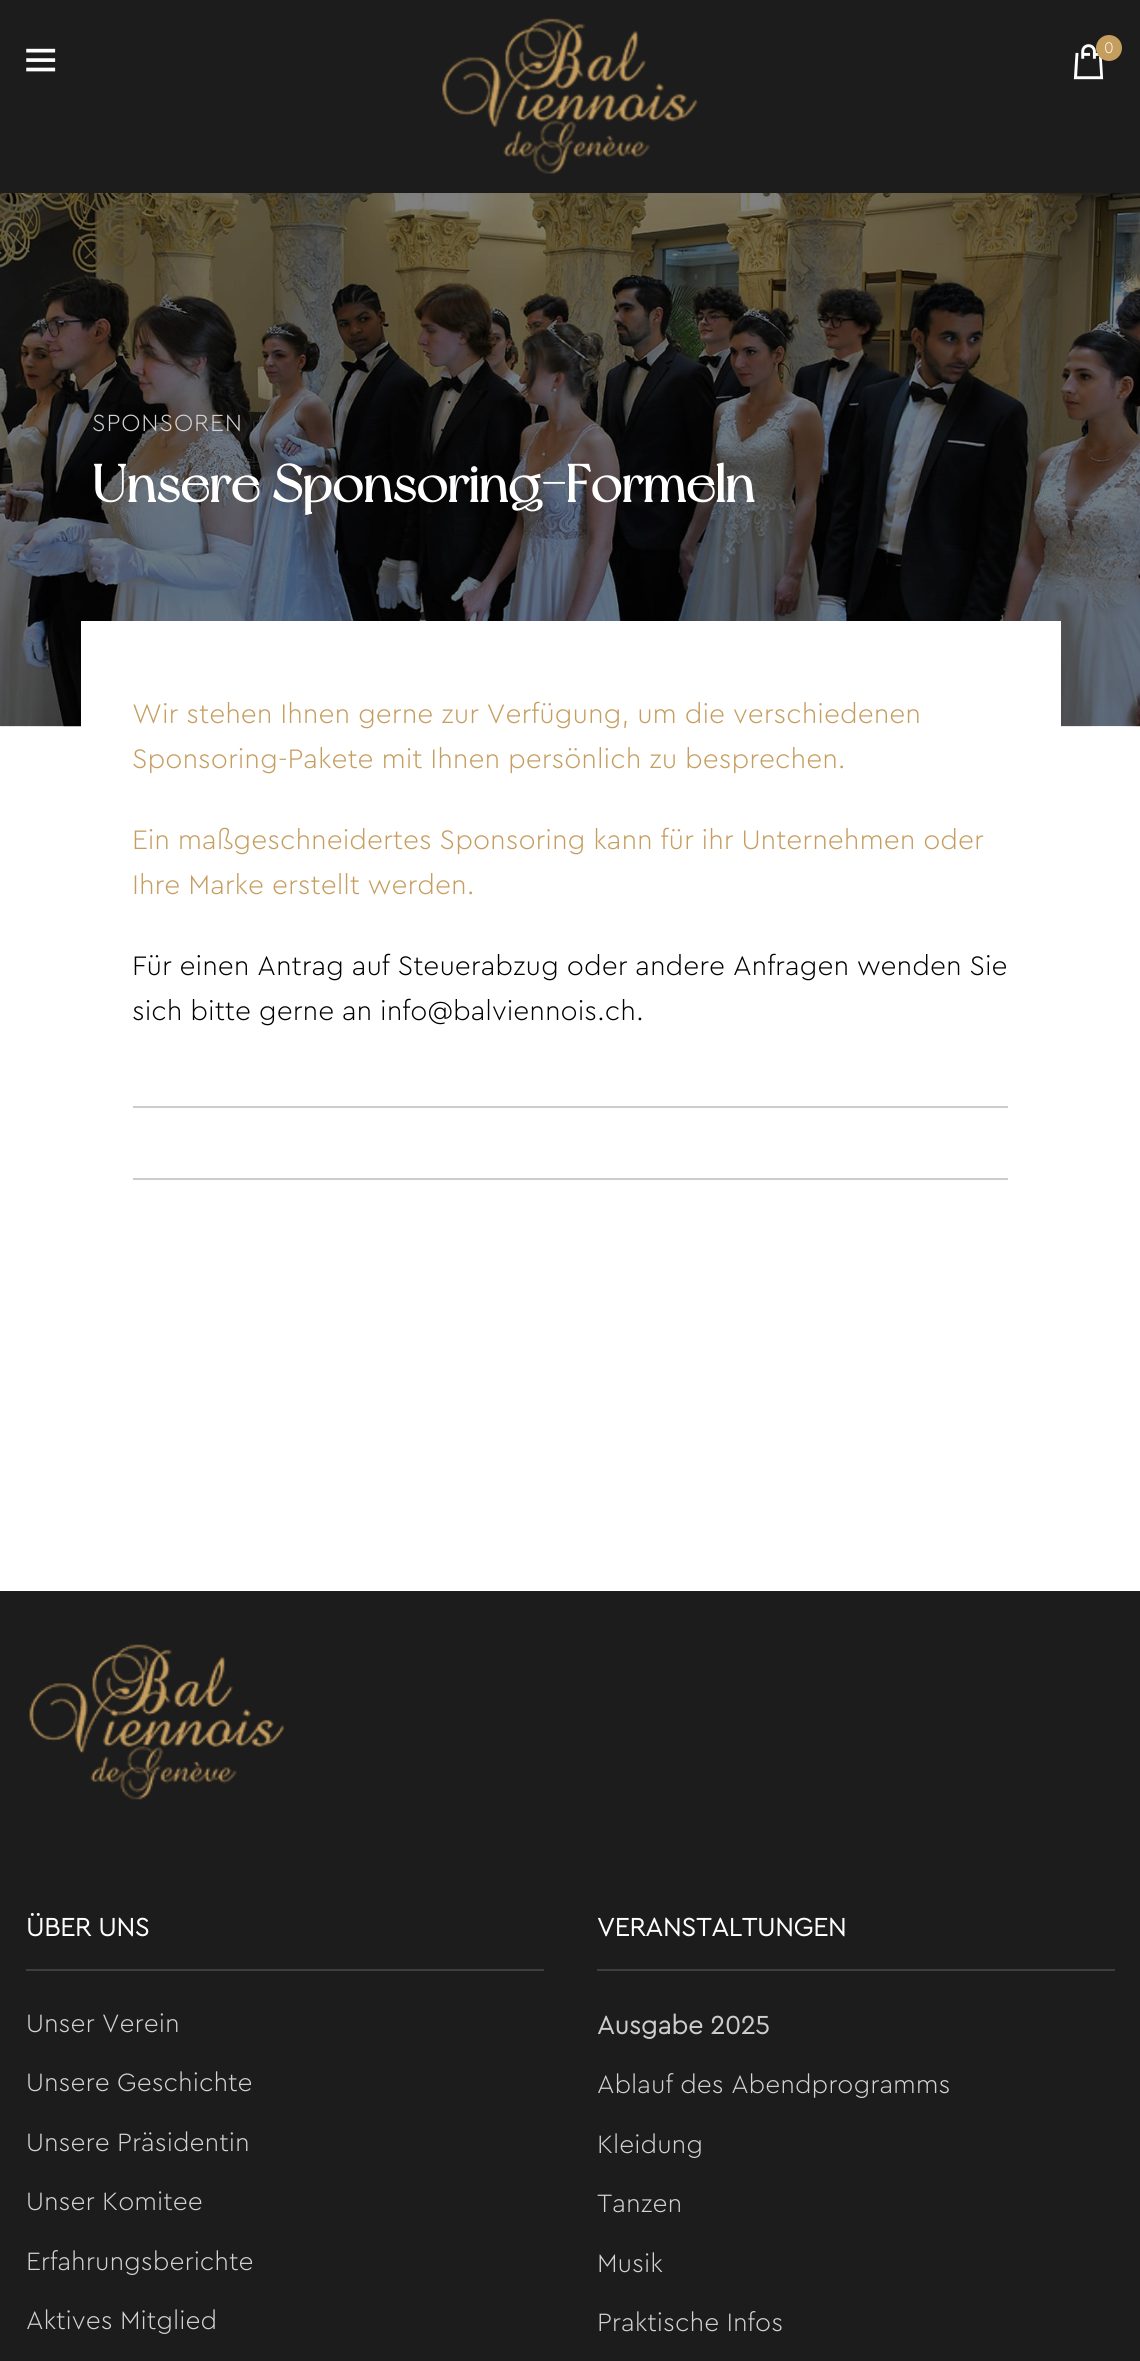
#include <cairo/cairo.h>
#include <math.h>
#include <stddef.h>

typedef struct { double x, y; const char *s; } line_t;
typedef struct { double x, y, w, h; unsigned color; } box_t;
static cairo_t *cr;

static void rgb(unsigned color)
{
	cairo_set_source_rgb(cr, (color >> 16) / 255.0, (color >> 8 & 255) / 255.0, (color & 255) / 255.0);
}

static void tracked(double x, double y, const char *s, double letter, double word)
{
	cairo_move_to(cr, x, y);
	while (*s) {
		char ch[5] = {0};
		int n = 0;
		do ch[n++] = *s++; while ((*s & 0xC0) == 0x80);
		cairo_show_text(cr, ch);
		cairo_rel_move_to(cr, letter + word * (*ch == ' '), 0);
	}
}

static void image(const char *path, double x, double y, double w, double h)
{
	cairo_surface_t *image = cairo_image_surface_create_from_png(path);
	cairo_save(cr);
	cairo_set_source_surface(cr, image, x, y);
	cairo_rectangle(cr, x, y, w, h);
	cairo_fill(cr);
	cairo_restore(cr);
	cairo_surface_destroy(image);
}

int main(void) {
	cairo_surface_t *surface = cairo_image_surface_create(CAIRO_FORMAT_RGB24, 1140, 2361);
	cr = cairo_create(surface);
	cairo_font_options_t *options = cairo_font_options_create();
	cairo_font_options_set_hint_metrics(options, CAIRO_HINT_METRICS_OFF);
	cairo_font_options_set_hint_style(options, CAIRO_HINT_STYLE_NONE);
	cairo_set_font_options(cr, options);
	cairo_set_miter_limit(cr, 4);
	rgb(0xffffff);
	cairo_paint(cr);
	rgb(0x1c1c1c);
	cairo_rectangle(cr, 0, 0, 1140, 193);
	cairo_fill(cr);
	image("img/1.png", 26, 48, 30, 24);
	image("img/2.png", 442, 18, 256, 156);
	image("img/3.png", 1073, 44, 31, 36);
	rgb(0xc59d5f);
	cairo_arc(cr, 1109, 48, 13, 0, 2 * M_PI);
	cairo_fill(cr);
	image("img/4.png", 0, 193, 1140, 534);
	{
		static const box_t items[] = {
			{81, 621, 980, 106, 0xffffff},
			{133, 1106, 875, 2, 0xcccccc},
			{133, 1178, 875, 2, 0xcccccc},
			{0, 1591, 1140, 770, 0x1c1c1c},
		};
		for (size_t i = 0; i < sizeof items / sizeof *items; i++) {
			rgb(items[i].color);
			cairo_rectangle(cr, items[i].x, items[i].y, items[i].w, items[i].h);
			cairo_fill(cr);
		}
	}
	image("img/5.png", 29, 1644, 255, 156);
	rgb(0x3e3e3e);
	cairo_rectangle(cr, 26, 1969, 518, 2);
	cairo_fill(cr);
	cairo_rectangle(cr, 597, 1969, 518, 2);
	cairo_fill(cr);
	cairo_select_font_face(cr, "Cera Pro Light", CAIRO_FONT_SLANT_NORMAL, CAIRO_FONT_WEIGHT_NORMAL);
	cairo_set_font_size(cr, 16);
	rgb(0xffffff);
	cairo_move_to(cr, 1104, 53);
	cairo_show_text(cr, "0");
	cairo_set_font_size(cr, 24.5);
	rgb(0xd4d3d3);
	tracked(92, 431, "SPONSOREN", 0.9, 0);
	cairo_select_font_face(cr, "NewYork", CAIRO_FONT_SLANT_NORMAL, CAIRO_FONT_WEIGHT_BOLD);
	cairo_set_font_size(cr, 52.5);
	rgb(0xffffff);
	cairo_move_to(cr, 92, 502);
	cairo_show_text(cr, "Unsere Sponsoring-Formeln");
	cairo_select_font_face(cr, "Cera Pro Light", CAIRO_FONT_SLANT_NORMAL, CAIRO_FONT_WEIGHT_NORMAL);
	cairo_set_font_size(cr, 28);
	rgb(0xc59d5f);
	{
		static const line_t items[] = {
			{132, 723, "Wir stehen Ihnen gerne zur Verfügung, um die verschiedenen"},
			{132, 768, "Sponsoring-Pakete mit Ihnen persönlich zu besprechen."},
			{132, 849, "Ein maßgeschneidertes Sponsoring kann für ihr Unternehmen oder"},
			{132, 894, "Ihre Marke erstellt werden."},
		};
		for (size_t i = 0; i < sizeof items / sizeof *items; i++) {
			cairo_move_to(cr, items[i].x, items[i].y);
			cairo_show_text(cr, items[i].s);
		}
	}
	rgb(0x000000);
	cairo_move_to(cr, 132, 975);
	cairo_show_text(cr, "Für einen Antrag auf Steuerabzug oder andere Anfragen wenden Sie");
	cairo_move_to(cr, 132, 1020);
	cairo_show_text(cr, "sich bitte gerne an info@balviennois.ch.");
	cairo_select_font_face(cr, "Cera Pro", CAIRO_FONT_SLANT_NORMAL, CAIRO_FONT_WEIGHT_BOLD);
	cairo_set_font_size(cr, 26.25);
	rgb(0xffffff);
	cairo_move_to(cr, 26, 1936);
	cairo_show_text(cr, "ÜBER UNS");
	cairo_select_font_face(cr, "Cera Pro Light", CAIRO_FONT_SLANT_NORMAL, CAIRO_FONT_WEIGHT_NORMAL);
	rgb(0xd4d3d3);
	{
		static const line_t items[] = {
			{26, 2032, "Unser Verein"},
			{26, 2091, "Unsere Geschichte"},
			{26, 2151, "Unsere Präsidentin"},
			{26, 2210, "Unser Komitee"},
			{26, 2270, "Erfahrungsberichte"},
			{26, 2329, "Aktives Mitglied"},
		};
		for (size_t i = 0; i < sizeof items / sizeof *items; i++) {
			cairo_move_to(cr, items[i].x, items[i].y);
			cairo_show_text(cr, items[i].s);
		}
	}
	cairo_select_font_face(cr, "Cera Pro", CAIRO_FONT_SLANT_NORMAL, CAIRO_FONT_WEIGHT_BOLD);
	rgb(0xffffff);
	cairo_move_to(cr, 597, 1936);
	cairo_show_text(cr, "VERANSTALTUNGEN");
	rgb(0xcccccc);
	cairo_move_to(cr, 597, 2034);
	cairo_show_text(cr, "Ausgabe 2025");
	cairo_select_font_face(cr, "Cera Pro Light", CAIRO_FONT_SLANT_NORMAL, CAIRO_FONT_WEIGHT_NORMAL);
	rgb(0xd4d3d3);
	{
		static const line_t items[] = {
			{597, 2093, "Ablauf des Abendprogramms"},
			{597, 2153, "Kleidung"},
			{597, 2212, "Tanzen"},
			{597, 2272, "Musik"},
			{597, 2331, "Praktische Infos"},
		};
		for (size_t i = 0; i < sizeof items / sizeof *items; i++) {
			cairo_move_to(cr, items[i].x, items[i].y);
			cairo_show_text(cr, items[i].s);
		}
	}
	cairo_surface_write_to_png(surface, "page.png");
	cairo_font_options_destroy(options);
	cairo_destroy(cr);
	cairo_surface_destroy(surface);
	return 0;
}
